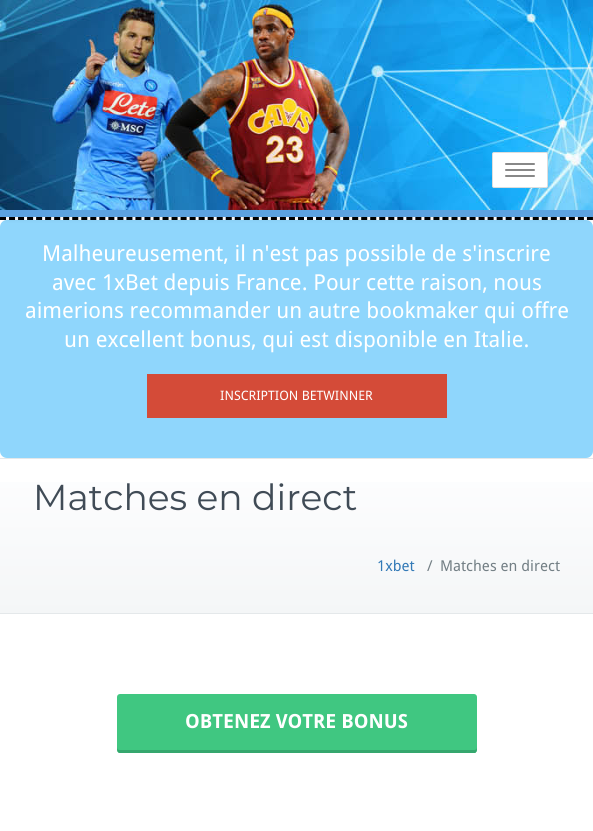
#include <cairo/cairo.h>
#include <math.h>
#include <stddef.h>

typedef struct { double x, y; const char *s; } line_t;
static cairo_t *cr;

static void rgb(unsigned color)
{
	cairo_set_source_rgb(cr, (color >> 16) / 255.0, (color >> 8 & 255) / 255.0, (color & 255) / 255.0);
}

static void rrect(double x, double y, double w, double h, double r)
{
	cairo_new_sub_path(cr);
	cairo_arc(cr, x + w - r, y + h - r, r, 0, M_PI / 2);
	cairo_arc(cr, x + r, y + h - r, r, M_PI / 2, M_PI);
	cairo_arc(cr, x + r, y + r, r, M_PI, 1.5 * M_PI);
	cairo_arc(cr, x + w - r, y + r, r, 1.5 * M_PI, 2 * M_PI);
	cairo_close_path(cr);
}

static void soft_shadow(double x, double y, double w, double h, double r, double blur, double alpha)
{
	cairo_push_group_with_content(cr, CAIRO_CONTENT_ALPHA);
	cairo_set_operator(cr, CAIRO_OPERATOR_SOURCE);
	for (int i = 15; i >= -15 && fmin(w, h) + blur * i / 3 > 0; i -= 2) {
		double e = blur * i / 6;
		cairo_set_source_rgba(cr, 0, 0, 0, alpha * erfc((i - 1) / 8.5) / 2);
		rrect(x - e, y - e, w + 2 * e, h + 2 * e, fmax(0, fmin(r + e + blur * .6, fmin(w, h) / 2 + e)));
		cairo_fill(cr);
	}
	cairo_pattern_t *soft = cairo_pop_group(cr);
	cairo_mask(cr, soft);
	cairo_pattern_destroy(soft);
}

static void image(const char *path, double x, double y, double w, double h)
{
	cairo_surface_t *image = cairo_image_surface_create_from_png(path);
	cairo_save(cr);
	cairo_set_source_surface(cr, image, x, y);
	cairo_rectangle(cr, x, y, w, h);
	cairo_fill(cr);
	cairo_restore(cr);
	cairo_surface_destroy(image);
}

int main(void) {
	cairo_surface_t *surface = cairo_image_surface_create(CAIRO_FORMAT_RGB24, 593, 831);
	cr = cairo_create(surface);
	cairo_font_options_t *options = cairo_font_options_create();
	cairo_font_options_set_hint_metrics(options, CAIRO_HINT_METRICS_OFF);
	cairo_font_options_set_hint_style(options, CAIRO_HINT_STYLE_NONE);
	cairo_set_font_options(cr, options);
	cairo_set_miter_limit(cr, 4);
	cairo_pattern_t *gradient;
	rgb(0xffffff);
	cairo_paint(cr);
	cairo_new_path(cr);
	cairo_move_to(cr, 0, 218.5);
	cairo_line_to(cr, 593, 218.5);
	rgb(0x000000);
	cairo_set_line_width(cr, 3);
	cairo_set_dash(cr, (double[]){6, 3.03}, 2, 0);
	cairo_stroke(cr);
	rgb(0x8fd6fc);
	rrect(0, 220, 593, 238, 7);
	cairo_fill(cr);
	rgb(0x000000);
	soft_shadow(4, 4, 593, 217, 0, 1.5, 0.04);
	image("img/1.png", 0, 0, 593, 210);
	rgb(0x5ca2df);
	cairo_rectangle(cr, 0, 210, 593, 7);
	cairo_fill(cr);
	rgb(0xffffff);
	rrect(492.5, 152.5, 55, 35, 1.5);
	cairo_fill_preserve(cr);
	rgb(0xdddddd);
	cairo_set_line_width(cr, 1);
	cairo_set_dash(cr, NULL, 0, 0);
	cairo_stroke(cr);
	rgb(0x888888);
	rrect(505, 163, 30, 2, 1);
	cairo_fill(cr);
	rrect(505, 169, 30, 2, 1);
	cairo_fill(cr);
	rrect(505, 175, 30, 2, 1);
	cairo_fill(cr);
	rgb(0xd44b38);
	cairo_rectangle(cr, 147, 374, 300, 44);
	cairo_fill(cr);
	gradient = cairo_pattern_create_linear(297, 459, 297, 613);
	cairo_pattern_add_color_stop_rgba(gradient, 0, 0.996, 0.996, 1, 1);
	cairo_pattern_add_color_stop_rgba(gradient, 1, 0.957, 0.965, 0.969, 1);
	cairo_set_source(cr, gradient);
	cairo_pattern_destroy(gradient);
	cairo_rectangle(cr, 0, 482, 593, 131);
	cairo_fill(cr);
	rgb(0xe4e8ea);
	cairo_rectangle(cr, 0, 458, 593, 1);
	cairo_fill(cr);
	cairo_rectangle(cr, 0, 613, 593, 1);
	cairo_fill(cr);
	rgb(0x40c781);
	rrect(117, 694, 360, 59, 3);
	cairo_fill(cr);
	rgb(0x35a76e);
	cairo_new_path(cr);
	cairo_move_to(cr, 117, 747);
	cairo_curve_to(cr, 117, 749, 117, 753, 120, 753);
	cairo_line_to(cr, 475, 753);
	cairo_curve_to(cr, 477, 752, 477, 749, 477, 747);
	cairo_curve_to(cr, 477, 749, 476, 750, 474, 750);
	cairo_line_to(cr, 120, 750);
	cairo_curve_to(cr, 118, 750, 117, 749, 117, 747);
	cairo_close_path(cr);
	cairo_fill(cr);
	cairo_select_font_face(cr, "Droid Sans", CAIRO_FONT_SLANT_NORMAL, CAIRO_FONT_WEIGHT_NORMAL);
	cairo_set_font_size(cr, 22);
	rgb(0xffffff);
	{
		static const line_t items[] = {
			{42, 261, "Malheureusement, il n'est pas possible de s'inscrire"},
			{52, 290, "avec 1xBet depuis France. Pour cette raison, nous"},
			{25, 318, "aimerions recommander un autre bookmaker qui offre"},
			{64, 347, "un excellent bonus, qui est disponible en Italie."},
		};
		for (size_t i = 0; i < sizeof items / sizeof *items; i++) {
			cairo_move_to(cr, items[i].x, items[i].y);
			cairo_show_text(cr, items[i].s);
		}
	}
	cairo_set_font_size(cr, 13);
	cairo_move_to(cr, 220, 400);
	cairo_show_text(cr, "INSCRIPTION BETWINNER");
	cairo_select_font_face(cr, "Montserrat", CAIRO_FONT_SLANT_NORMAL, CAIRO_FONT_WEIGHT_NORMAL);
	cairo_set_font_size(cr, 36);
	rgb(0x404b56);
	cairo_move_to(cr, 33, 510);
	cairo_show_text(cr, "Matches en direct");
	cairo_select_font_face(cr, "Droid Sans", CAIRO_FONT_SLANT_NORMAL, CAIRO_FONT_WEIGHT_NORMAL);
	cairo_set_font_size(cr, 15);
	rgb(0x337ab7);
	cairo_move_to(cr, 377, 571);
	cairo_show_text(cr, "1xbet");
	rgb(0x737f85);
	cairo_move_to(cr, 427, 571);
	cairo_show_text(cr, "/");
	cairo_move_to(cr, 440, 571);
	cairo_show_text(cr, "Matches en direct");
	cairo_select_font_face(cr, "Droid Sans", CAIRO_FONT_SLANT_NORMAL, CAIRO_FONT_WEIGHT_BOLD);
	cairo_set_font_size(cr, 19.5);
	rgb(0xffffff);
	cairo_move_to(cr, 185, 728);
	cairo_show_text(cr, "OBTENEZ VOTRE BONUS");
	cairo_surface_write_to_png(surface, "page.png");
	cairo_font_options_destroy(options);
	cairo_destroy(cr);
	cairo_surface_destroy(surface);
	return 0;
}
